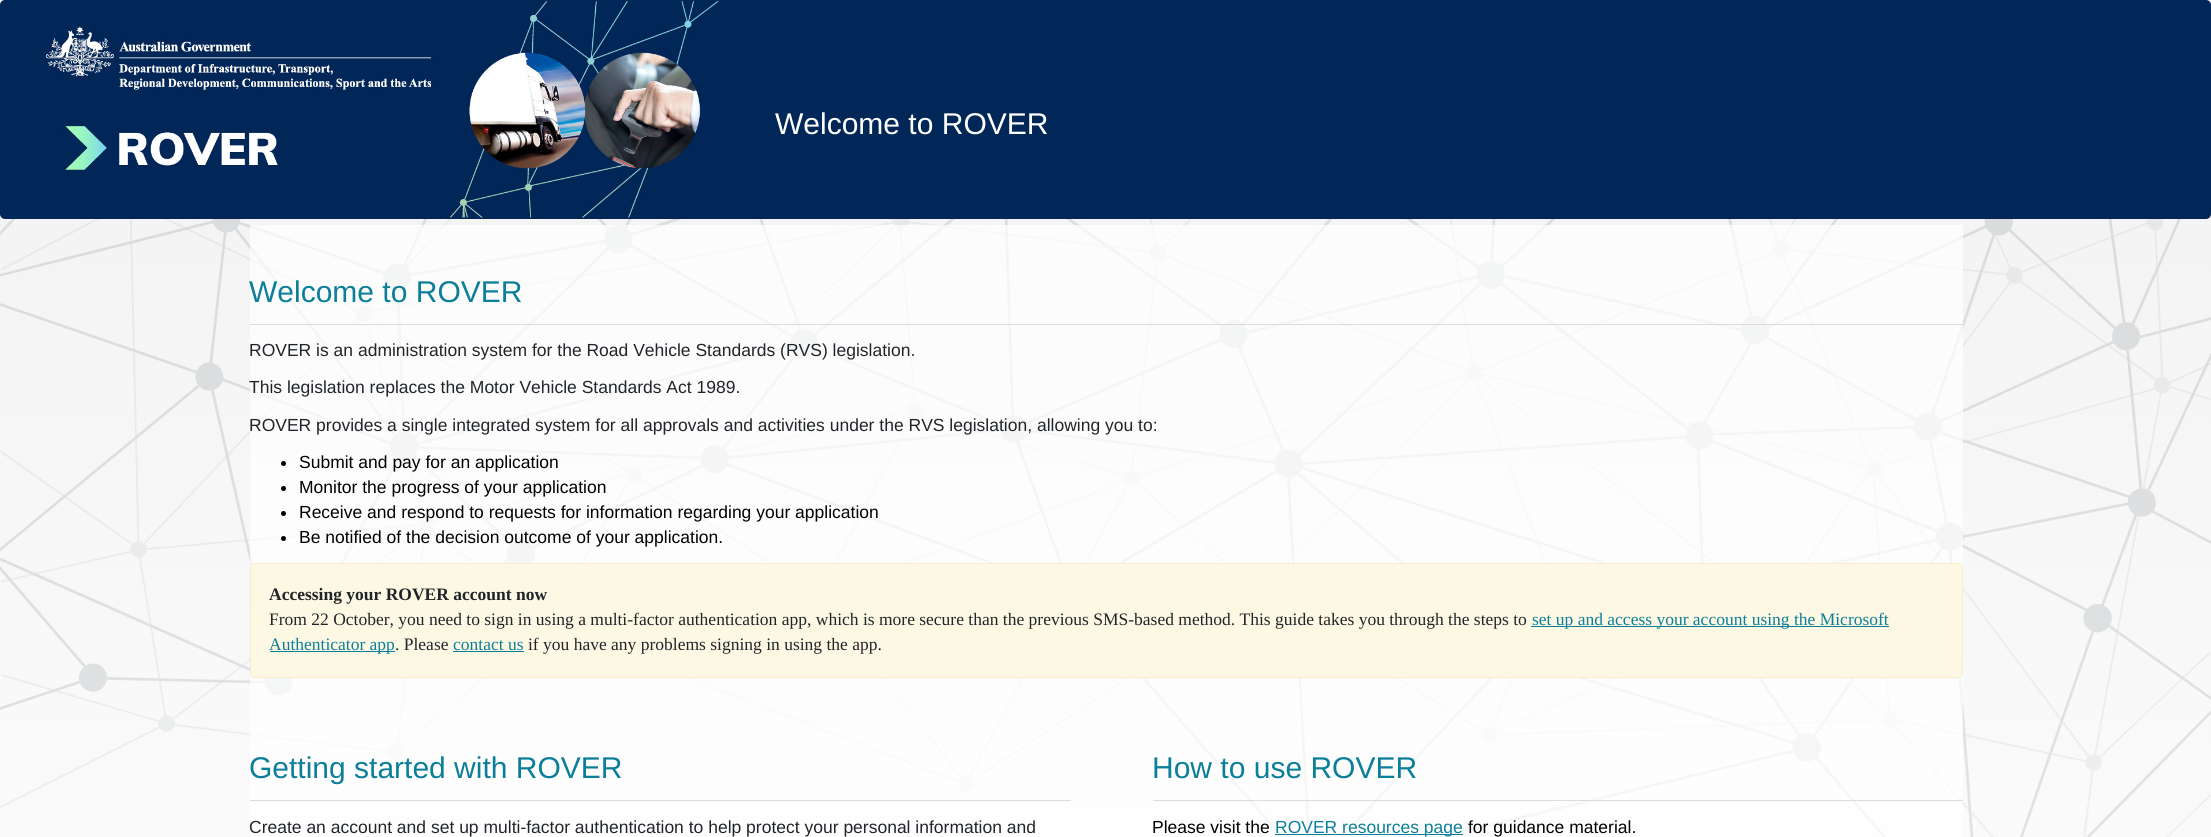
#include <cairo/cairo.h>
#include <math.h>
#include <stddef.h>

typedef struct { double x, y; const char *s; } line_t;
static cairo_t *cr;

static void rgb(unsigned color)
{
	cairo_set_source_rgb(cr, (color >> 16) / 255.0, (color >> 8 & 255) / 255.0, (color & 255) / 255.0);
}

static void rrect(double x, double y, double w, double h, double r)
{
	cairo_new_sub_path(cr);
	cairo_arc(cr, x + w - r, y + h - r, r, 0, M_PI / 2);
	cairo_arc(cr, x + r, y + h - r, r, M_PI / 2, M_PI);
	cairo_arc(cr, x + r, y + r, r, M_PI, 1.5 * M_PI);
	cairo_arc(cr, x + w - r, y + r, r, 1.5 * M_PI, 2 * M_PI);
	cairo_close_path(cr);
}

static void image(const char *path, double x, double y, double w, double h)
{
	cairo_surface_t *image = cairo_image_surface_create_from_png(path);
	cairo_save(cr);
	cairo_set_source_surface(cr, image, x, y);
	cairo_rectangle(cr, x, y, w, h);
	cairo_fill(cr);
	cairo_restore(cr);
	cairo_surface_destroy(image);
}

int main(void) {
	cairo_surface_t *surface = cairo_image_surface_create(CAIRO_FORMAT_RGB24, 2211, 837);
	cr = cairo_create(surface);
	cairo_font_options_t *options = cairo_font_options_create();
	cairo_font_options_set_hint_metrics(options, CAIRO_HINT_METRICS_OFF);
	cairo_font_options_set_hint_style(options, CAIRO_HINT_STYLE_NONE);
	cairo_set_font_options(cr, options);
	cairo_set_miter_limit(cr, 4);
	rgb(0xffffff);
	cairo_paint(cr);
	image("img/1.png", 0, 0, 2211, 837);
	rgb(0x012758);
	rrect(0, 0, 2211, 219, 5);
	cairo_fill(cr);
	image("img/2.png", 46, 1, 673, 217);
	cairo_set_source_rgba(cr, 1, 1, 1, 0.7);
	cairo_rectangle(cr, 250, 225, 1713, 478);
	cairo_fill(cr);
	rgb(0xdddcdc);
	cairo_rectangle(cr, 250, 324, 1713, 1);
	cairo_fill(cr);
	rgb(0x000000);
	cairo_arc(cr, 283.5, 463.5, 2.5, 0, 2 * M_PI);
	cairo_fill(cr);
	cairo_arc(cr, 283.5, 488.5, 2.5, 0, 2 * M_PI);
	cairo_fill(cr);
	cairo_arc(cr, 283.5, 513.5, 2.5, 0, 2 * M_PI);
	cairo_fill(cr);
	cairo_arc(cr, 283.5, 538.5, 2.5, 0, 2 * M_PI);
	cairo_fill(cr);
	rgb(0xfcf8e3);
	rrect(250.5, 563.5, 1712, 114, 4.5);
	cairo_fill_preserve(cr);
	rgb(0xfaebcc);
	cairo_set_line_width(cr, 1);
	cairo_stroke(cr);
	rgb(0x0b7f99);
	cairo_rectangle(cr, 1531, 626, 358, 1);
	cairo_fill(cr);
	cairo_rectangle(cr, 270, 651, 125, 1);
	cairo_fill(cr);
	cairo_rectangle(cr, 453, 651, 71, 1);
	cairo_fill(cr);
	cairo_set_source_rgba(cr, 1, 1, 1, 0.7);
	cairo_rectangle(cr, 250, 703, 1713, 134);
	cairo_fill(cr);
	rgb(0xdddcdc);
	cairo_rectangle(cr, 250, 800, 821, 1);
	cairo_fill(cr);
	cairo_rectangle(cr, 1153, 800, 810, 1);
	cairo_fill(cr);
	rgb(0x0b7f99);
	cairo_rectangle(cr, 1275, 834, 188, 1);
	cairo_fill(cr);
	cairo_select_font_face(cr, "Liberation Sans", CAIRO_FONT_SLANT_NORMAL, CAIRO_FONT_WEIGHT_NORMAL);
	cairo_set_font_size(cr, 30);
	rgb(0xffffff);
	cairo_move_to(cr, 775, 134);
	cairo_show_text(cr, "Welcome to ROVER");
	rgb(0x0b7f99);
	cairo_move_to(cr, 249, 302);
	cairo_show_text(cr, "Welcome to ROVER");
	cairo_set_font_size(cr, 17.5);
	rgb(0x212529);
	{
		static const line_t items[] = {
			{249, 356, "ROVER is an administration system for the Road Vehicle Standards (RVS) legislation."},
			{249, 393, "This legislation replaces the Motor Vehicle Standards Act 1989."},
			{249, 431, "ROVER provides a single integrated system for all approvals and activities under the RVS legislation, allowing you to:"},
		};
		for (size_t i = 0; i < sizeof items / sizeof *items; i++) {
			cairo_move_to(cr, items[i].x, items[i].y);
			cairo_show_text(cr, items[i].s);
		}
	}
	rgb(0x000000);
	{
		static const line_t items[] = {
			{299, 468, "Submit and pay for an application"},
			{299, 493, "Monitor the progress of your application"},
			{299, 518, "Receive and respond to requests for information regarding your application"},
			{299, 543, "Be notified of the decision outcome of your application."},
		};
		for (size_t i = 0; i < sizeof items / sizeof *items; i++) {
			cairo_move_to(cr, items[i].x, items[i].y);
			cairo_show_text(cr, items[i].s);
		}
	}
	cairo_select_font_face(cr, "Liberation Serif", CAIRO_FONT_SLANT_NORMAL, CAIRO_FONT_WEIGHT_BOLD);
	rgb(0x212529);
	cairo_move_to(cr, 269, 600);
	cairo_show_text(cr, "Accessing your ROVER account now");
	cairo_select_font_face(cr, "Liberation Serif", CAIRO_FONT_SLANT_NORMAL, CAIRO_FONT_WEIGHT_NORMAL);
	cairo_move_to(cr, 269, 625);
	cairo_show_text(cr, "From 22 October, you need to sign in using a multi-factor authentication app, which is more secure than the previous SMS-based method. This guide takes you through the steps to");
	rgb(0x0b7f99);
	cairo_move_to(cr, 1532, 625);
	cairo_show_text(cr, "set up and access your account using the Microsoft");
	cairo_move_to(cr, 269, 650);
	cairo_show_text(cr, "Authenticator app");
	rgb(0x212529);
	cairo_move_to(cr, 395, 650);
	cairo_show_text(cr, ". Please");
	rgb(0x0b7f99);
	cairo_move_to(cr, 453, 650);
	cairo_show_text(cr, "contact us");
	rgb(0x212529);
	cairo_move_to(cr, 528, 650);
	cairo_show_text(cr, "if you have any problems signing in using the app.");
	cairo_select_font_face(cr, "Liberation Sans", CAIRO_FONT_SLANT_NORMAL, CAIRO_FONT_WEIGHT_NORMAL);
	cairo_set_font_size(cr, 30);
	rgb(0x0b7f99);
	cairo_move_to(cr, 249, 778);
	cairo_show_text(cr, "Getting started with ROVER");
	cairo_set_font_size(cr, 17.5);
	rgb(0x212529);
	cairo_move_to(cr, 249, 833);
	cairo_show_text(cr, "Create an account and set up multi-factor authentication to help protect your personal information and");
	cairo_set_font_size(cr, 30);
	rgb(0x0b7f99);
	cairo_move_to(cr, 1152, 778);
	cairo_show_text(cr, "How to use ROVER");
	cairo_set_font_size(cr, 17.5);
	rgb(0x000000);
	cairo_move_to(cr, 1152, 833);
	cairo_show_text(cr, "Please visit the");
	rgb(0x0b7f99);
	cairo_move_to(cr, 1275, 833);
	cairo_show_text(cr, "ROVER resources page");
	rgb(0x000000);
	cairo_move_to(cr, 1468, 833);
	cairo_show_text(cr, "for guidance material.");
	cairo_surface_write_to_png(surface, "page.png");
	cairo_font_options_destroy(options);
	cairo_destroy(cr);
	cairo_surface_destroy(surface);
	return 0;
}
